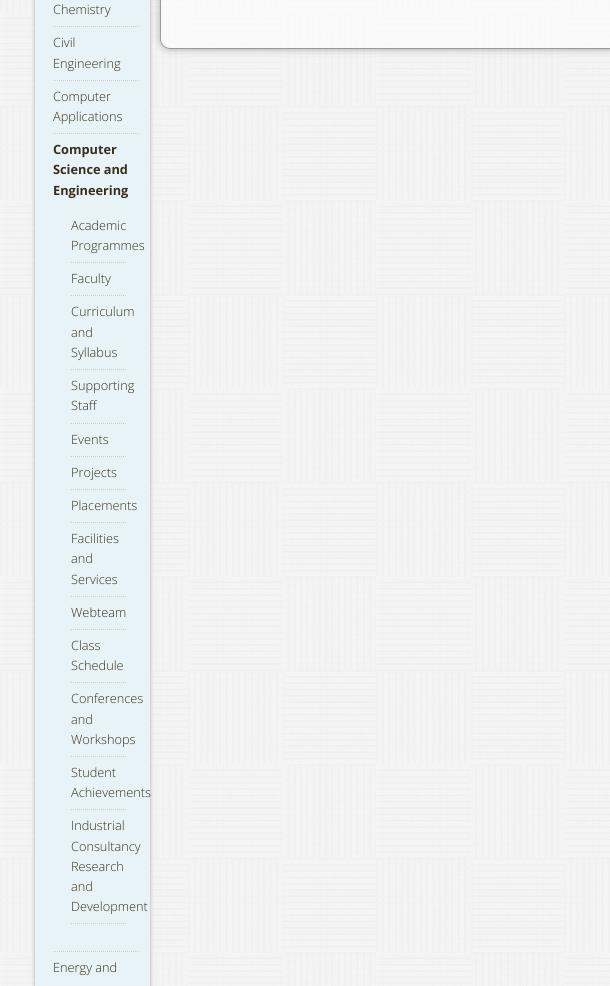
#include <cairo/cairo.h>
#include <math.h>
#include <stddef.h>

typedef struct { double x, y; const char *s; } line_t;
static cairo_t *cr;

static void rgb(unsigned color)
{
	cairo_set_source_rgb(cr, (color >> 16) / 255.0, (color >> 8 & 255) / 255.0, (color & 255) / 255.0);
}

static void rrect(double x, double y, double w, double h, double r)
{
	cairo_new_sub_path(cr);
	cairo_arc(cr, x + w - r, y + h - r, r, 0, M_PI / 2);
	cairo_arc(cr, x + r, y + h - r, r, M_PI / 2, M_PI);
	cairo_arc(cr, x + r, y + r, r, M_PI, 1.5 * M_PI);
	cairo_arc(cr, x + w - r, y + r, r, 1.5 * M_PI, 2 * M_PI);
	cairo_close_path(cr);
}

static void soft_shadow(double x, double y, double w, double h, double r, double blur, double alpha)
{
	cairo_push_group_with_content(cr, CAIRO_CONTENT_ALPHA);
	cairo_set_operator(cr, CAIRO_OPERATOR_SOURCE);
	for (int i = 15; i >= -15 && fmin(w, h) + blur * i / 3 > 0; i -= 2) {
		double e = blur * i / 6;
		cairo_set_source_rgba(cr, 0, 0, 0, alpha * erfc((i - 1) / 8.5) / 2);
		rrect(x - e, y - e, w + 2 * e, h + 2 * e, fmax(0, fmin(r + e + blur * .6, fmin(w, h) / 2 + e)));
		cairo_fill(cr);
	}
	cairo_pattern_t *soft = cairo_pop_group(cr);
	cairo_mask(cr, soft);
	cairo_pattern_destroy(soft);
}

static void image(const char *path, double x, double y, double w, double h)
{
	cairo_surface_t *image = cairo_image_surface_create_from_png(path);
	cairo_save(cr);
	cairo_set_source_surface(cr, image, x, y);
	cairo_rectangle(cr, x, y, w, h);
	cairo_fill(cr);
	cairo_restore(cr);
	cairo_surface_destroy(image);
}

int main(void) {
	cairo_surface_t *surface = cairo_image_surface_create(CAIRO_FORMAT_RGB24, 610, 986);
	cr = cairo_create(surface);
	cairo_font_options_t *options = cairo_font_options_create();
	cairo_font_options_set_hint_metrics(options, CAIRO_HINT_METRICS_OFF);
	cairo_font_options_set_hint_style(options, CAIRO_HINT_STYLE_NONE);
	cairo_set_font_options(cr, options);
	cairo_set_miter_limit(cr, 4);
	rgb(0xffffff);
	cairo_paint(cr);
	image("img/1.png", 0, 0, 610, 986);
	rgb(0x000000);
	soft_shadow(35, -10, 115, 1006, 4, 2, 0.3);
	rgb(0xe8f3f7);
	cairo_rectangle(cr, 35, 0, 115, 986);
	cairo_fill(cr);
	cairo_new_path(cr);
	cairo_move_to(cr, 53, 26.5);
	cairo_line_to(cr, 138, 26.5);
	rgb(0xcccccc);
	cairo_set_line_width(cr, 1);
	cairo_set_dash(cr, (double[]){1, 1}, 2, 0);
	cairo_stroke(cr);
	cairo_new_path(cr);
	cairo_move_to(cr, 53, 80.5);
	cairo_line_to(cr, 138, 80.5);
	cairo_stroke(cr);
	cairo_new_path(cr);
	cairo_move_to(cr, 53, 133.5);
	cairo_line_to(cr, 138, 133.5);
	cairo_stroke(cr);
	cairo_new_path(cr);
	cairo_move_to(cr, 53, 951.5);
	cairo_line_to(cr, 138, 951.5);
	cairo_stroke(cr);
	cairo_new_path(cr);
	cairo_move_to(cr, 71, 262.5);
	cairo_line_to(cr, 126, 262.5);
	cairo_stroke(cr);
	cairo_new_path(cr);
	cairo_move_to(cr, 71, 295.5);
	cairo_line_to(cr, 126, 295.5);
	cairo_stroke(cr);
	cairo_new_path(cr);
	cairo_move_to(cr, 71, 369.5);
	cairo_line_to(cr, 126, 369.5);
	cairo_stroke(cr);
	cairo_new_path(cr);
	cairo_move_to(cr, 71, 423.5);
	cairo_line_to(cr, 126, 423.5);
	cairo_stroke(cr);
	cairo_new_path(cr);
	cairo_move_to(cr, 71, 456.5);
	cairo_line_to(cr, 126, 456.5);
	cairo_stroke(cr);
	cairo_new_path(cr);
	cairo_move_to(cr, 71, 489.5);
	cairo_line_to(cr, 126, 489.5);
	cairo_stroke(cr);
	cairo_new_path(cr);
	cairo_move_to(cr, 71, 522.5);
	cairo_line_to(cr, 126, 522.5);
	cairo_stroke(cr);
	cairo_new_path(cr);
	cairo_move_to(cr, 71, 596.5);
	cairo_line_to(cr, 126, 596.5);
	cairo_stroke(cr);
	cairo_new_path(cr);
	cairo_move_to(cr, 71, 629.5);
	cairo_line_to(cr, 126, 629.5);
	cairo_stroke(cr);
	cairo_new_path(cr);
	cairo_move_to(cr, 71, 682.5);
	cairo_line_to(cr, 126, 682.5);
	cairo_stroke(cr);
	cairo_new_path(cr);
	cairo_move_to(cr, 71, 756.5);
	cairo_line_to(cr, 126, 756.5);
	cairo_stroke(cr);
	cairo_new_path(cr);
	cairo_move_to(cr, 71, 809.5);
	cairo_line_to(cr, 126, 809.5);
	cairo_stroke(cr);
	cairo_new_path(cr);
	cairo_move_to(cr, 71, 923.5);
	cairo_line_to(cr, 126, 923.5);
	cairo_stroke(cr);
	cairo_save(cr);
	cairo_set_fill_rule(cr, CAIRO_FILL_RULE_EVEN_ODD);
	cairo_new_path(cr);
	cairo_move_to(cr, 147, 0);
	cairo_line_to(cr, 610, 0);
	cairo_line_to(cr, 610, 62);
	cairo_line_to(cr, 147, 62);
	cairo_close_path(cr);
	cairo_move_to(cr, 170, -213);
	cairo_line_to(cr, 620, -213);
	cairo_curve_to(cr, 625.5, -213, 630, -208.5, 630, -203);
	cairo_line_to(cr, 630, 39);
	cairo_curve_to(cr, 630, 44.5, 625.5, 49, 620, 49);
	cairo_line_to(cr, 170, 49);
	cairo_curve_to(cr, 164.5, 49, 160, 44.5, 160, 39);
	cairo_line_to(cr, 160, -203);
	cairo_curve_to(cr, 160, -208.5, 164.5, -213, 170, -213);
	cairo_close_path(cr);
	cairo_clip(cr);
	rgb(0x000000);
	soft_shadow(160, -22, 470, 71, 10, 4, 0.3);
	cairo_restore(cr);
	cairo_set_source_rgba(cr, 1, 1, 1, 0.5);
	cairo_new_path(cr);
	cairo_move_to(cr, 170, -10);
	cairo_line_to(cr, 610, -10);
	cairo_line_to(cr, 610, 49);
	cairo_line_to(cr, 170, 49);
	cairo_curve_to(cr, 164.5, 49, 160, 44.5, 160, 39);
	cairo_line_to(cr, 160, 0);
	cairo_curve_to(cr, 160, -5.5, 164.5, -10, 170, -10);
	cairo_close_path(cr);
	cairo_fill(cr);
	rrect(160.5, -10.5, 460, 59, 9.5);
	rgb(0x999999);
	cairo_set_dash(cr, NULL, 0, 0);
	cairo_stroke(cr);
	cairo_select_font_face(cr, "Open Sans Light", CAIRO_FONT_SLANT_NORMAL, CAIRO_FONT_WEIGHT_NORMAL);
	cairo_set_font_size(cr, 12.75);
	rgb(0x382f1c);
	{
		static const line_t items[] = {
			{53, 14, "Chemistry"},
			{53, 47, "Civil"},
			{53, 68, "Engineering"},
			{53, 101, "Computer"},
			{53, 121, "Applications"},
		};
		for (size_t i = 0; i < sizeof items / sizeof *items; i++) {
			cairo_move_to(cr, items[i].x, items[i].y);
			cairo_show_text(cr, items[i].s);
		}
	}
	cairo_select_font_face(cr, "Open Sans", CAIRO_FONT_SLANT_NORMAL, CAIRO_FONT_WEIGHT_BOLD);
	{
		static const line_t items[] = {
			{53, 154, "Computer"},
			{53, 174, "Science and"},
			{53, 195, "Engineering"},
		};
		for (size_t i = 0; i < sizeof items / sizeof *items; i++) {
			cairo_move_to(cr, items[i].x, items[i].y);
			cairo_show_text(cr, items[i].s);
		}
	}
	cairo_select_font_face(cr, "Open Sans Light", CAIRO_FONT_SLANT_NORMAL, CAIRO_FONT_WEIGHT_NORMAL);
	{
		static const line_t items[] = {
			{71, 230, "Academic"},
			{71, 250, "Programmes"},
			{71, 283, "Faculty"},
			{71, 316, "Curriculum"},
			{71, 337, "and"},
			{71, 357, "Syllabus"},
			{71, 390, "Supporting"},
			{71, 410, "Staff"},
			{71, 444, "Events"},
			{71, 477, "Projects"},
			{71, 510, "Placements"},
			{71, 543, "Facilities"},
			{71, 563, "and"},
			{71, 584, "Services"},
			{71, 617, "Webteam"},
			{71, 650, "Class"},
			{71, 670, "Schedule"},
			{71, 703, "Conferences"},
			{71, 724, "and"},
			{71, 744, "Workshops"},
			{71, 777, "Student"},
			{71, 797, "Achievements"},
			{71, 830, "Industrial"},
			{71, 851, "Consultancy"},
			{71, 871, "Research"},
			{71, 891, "and"},
			{71, 911, "Development"},
			{53, 972, "Energy and"},
		};
		for (size_t i = 0; i < sizeof items / sizeof *items; i++) {
			cairo_move_to(cr, items[i].x, items[i].y);
			cairo_show_text(cr, items[i].s);
		}
	}
	cairo_surface_write_to_png(surface, "page.png");
	cairo_font_options_destroy(options);
	cairo_destroy(cr);
	cairo_surface_destroy(surface);
	return 0;
}
